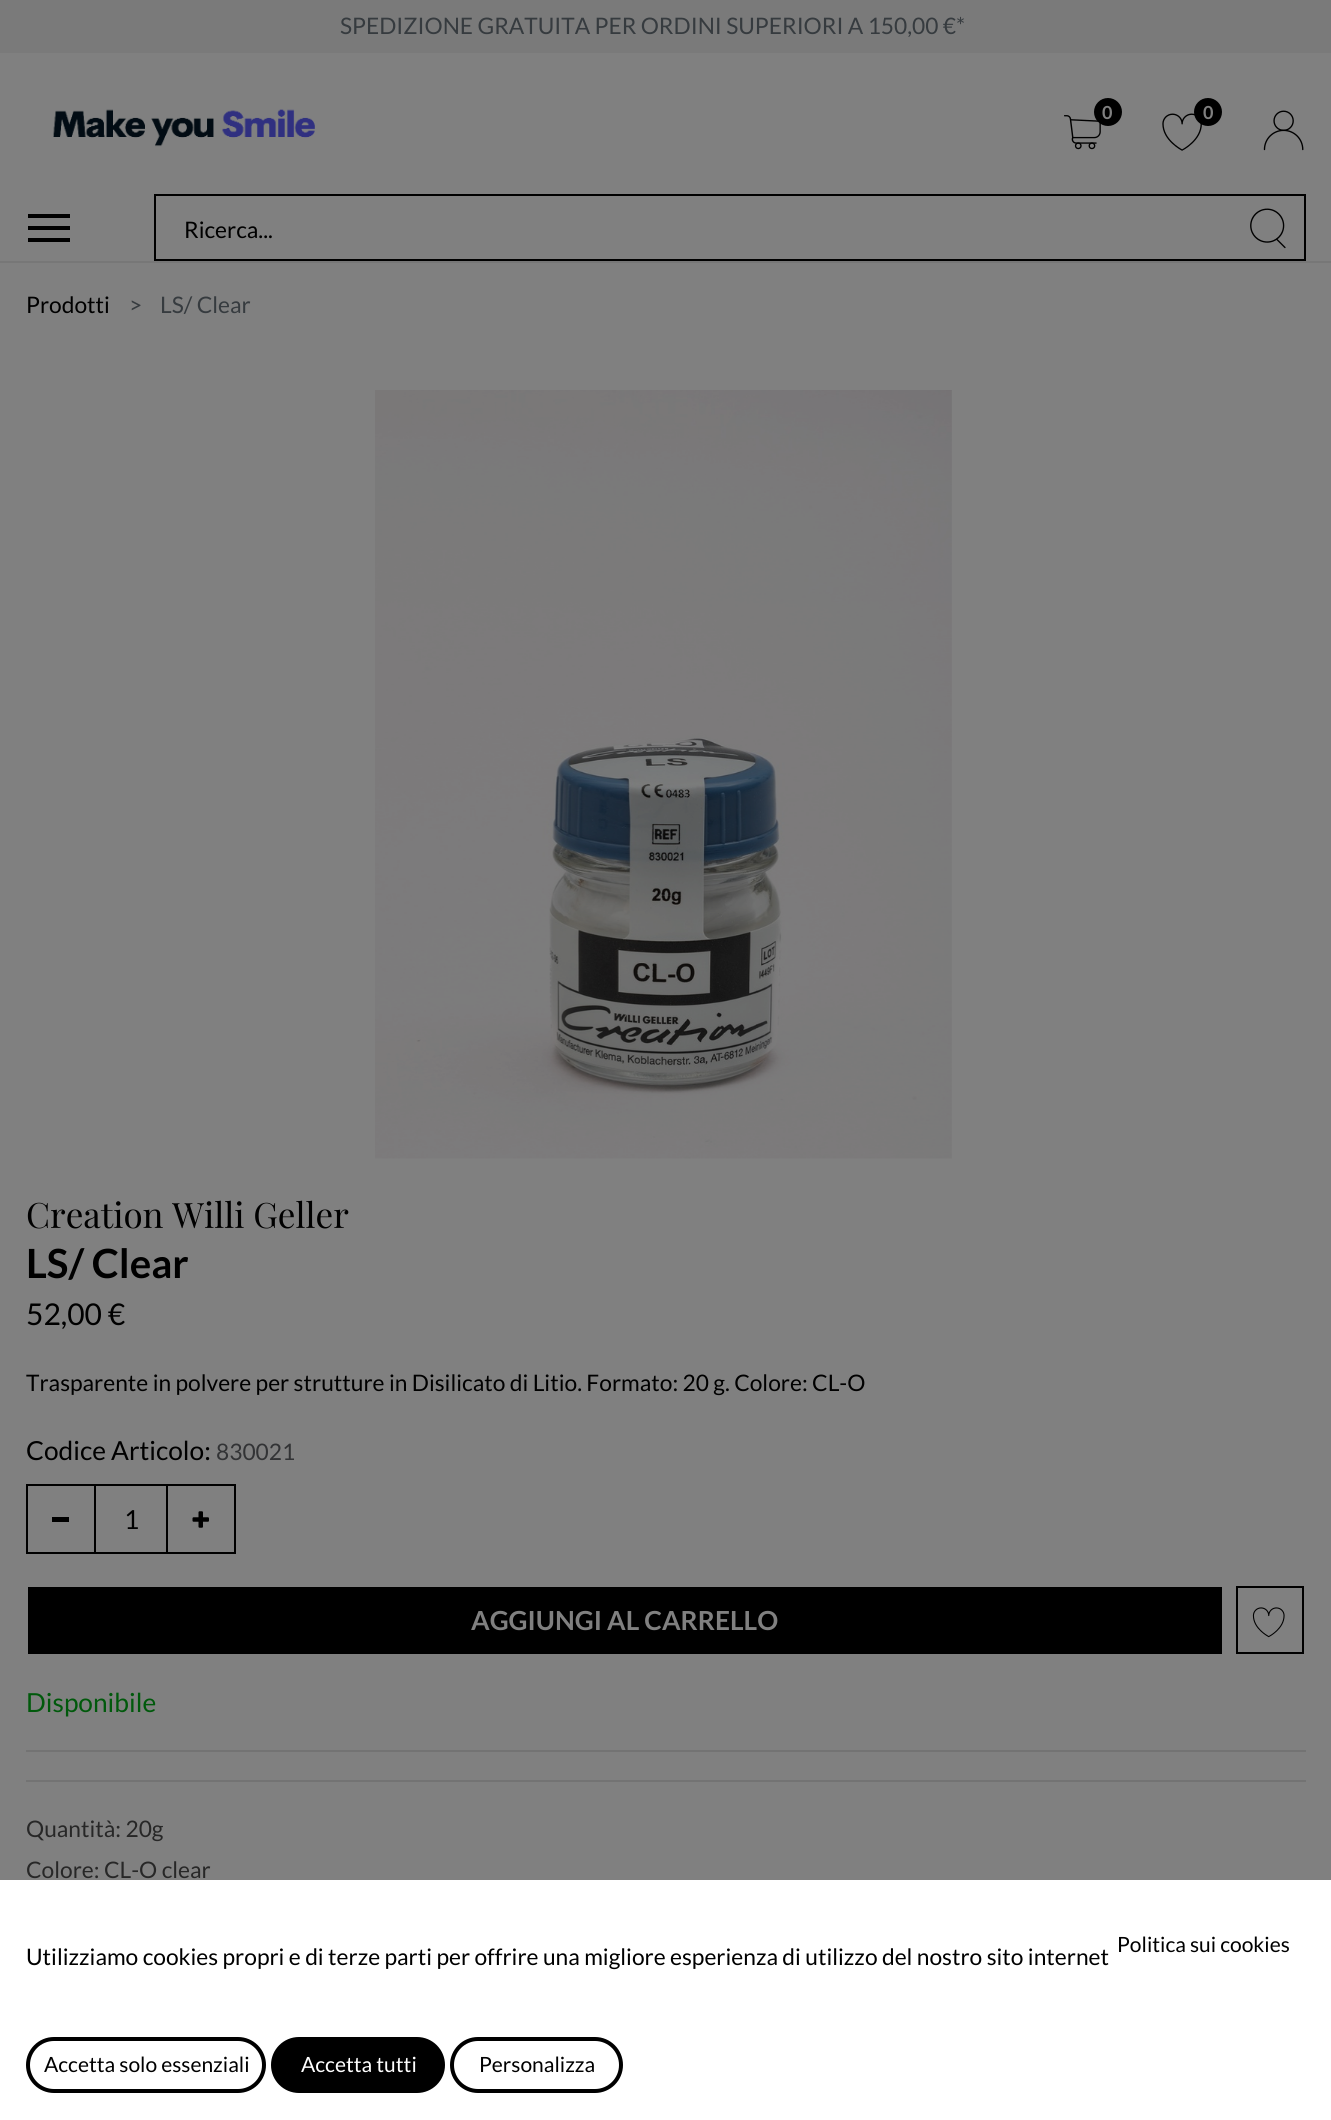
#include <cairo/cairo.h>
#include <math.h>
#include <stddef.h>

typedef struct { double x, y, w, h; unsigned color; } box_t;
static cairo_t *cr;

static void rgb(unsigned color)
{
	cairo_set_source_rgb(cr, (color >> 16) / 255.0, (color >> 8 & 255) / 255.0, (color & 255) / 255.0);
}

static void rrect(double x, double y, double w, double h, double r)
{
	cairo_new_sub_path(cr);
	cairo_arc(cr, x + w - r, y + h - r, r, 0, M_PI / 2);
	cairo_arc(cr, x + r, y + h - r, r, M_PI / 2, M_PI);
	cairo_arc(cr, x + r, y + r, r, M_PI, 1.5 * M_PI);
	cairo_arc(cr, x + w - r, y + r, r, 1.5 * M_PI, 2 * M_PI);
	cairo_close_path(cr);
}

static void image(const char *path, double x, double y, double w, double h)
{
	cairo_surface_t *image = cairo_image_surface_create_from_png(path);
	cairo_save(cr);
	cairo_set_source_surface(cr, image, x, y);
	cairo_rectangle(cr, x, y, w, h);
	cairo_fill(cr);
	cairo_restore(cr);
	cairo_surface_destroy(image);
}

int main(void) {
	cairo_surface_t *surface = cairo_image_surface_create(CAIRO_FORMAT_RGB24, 1331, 2120);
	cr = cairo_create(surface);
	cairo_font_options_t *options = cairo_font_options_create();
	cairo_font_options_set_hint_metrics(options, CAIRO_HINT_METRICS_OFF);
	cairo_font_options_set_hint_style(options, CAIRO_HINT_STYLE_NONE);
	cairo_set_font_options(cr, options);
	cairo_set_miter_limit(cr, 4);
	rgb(0x808080);
	cairo_paint(cr);
	rgb(0x7a7a7a);
	cairo_rectangle(cr, 0, 0, 1331, 53);
	cairo_fill(cr);
	image("img/1.png", 53, 109, 262, 38);
	image("img/2.png", 1064, 115, 37, 35);
	rgb(0x000000);
	cairo_arc(cr, 1108, 112, 14, 0, 2 * M_PI);
	cairo_fill(cr);
	image("img/3.png", 1162, 113, 40, 38);
	cairo_arc(cr, 1208, 112, 14, 0, 2 * M_PI);
	cairo_fill(cr);
	image("img/4.png", 1263, 110, 41, 41);
	{
		static const box_t items[] = {
			{0, 261, 1331, 2, 0x777777},
			{28, 214, 42, 4, 0x000000},
			{28, 226, 42, 4, 0x000000},
			{28, 238, 42, 4, 0x000000},
			{154, 194, 1152, 2, 0x000000},
			{154, 259, 1080, 2, 0x000000},
			{154, 194, 2, 67, 0x000000},
			{1304, 194, 2, 67, 0x000000},
			{1232, 259, 74, 2, 0x000000},
		};
		for (size_t i = 0; i < sizeof items / sizeof *items; i++) {
			rgb(items[i].color);
			cairo_rectangle(cr, items[i].x, items[i].y, items[i].w, items[i].h);
			cairo_fill(cr);
		}
	}
	image("img/5.png", 1250, 208, 36, 41);
	image("img/6.png", 375, 390, 577, 769);
	cairo_rectangle(cr, 27, 1485, 68, 68);
	cairo_stroke(cr);
	{
		static const box_t items[] = {
			{52, 1517, 17, 5, 0x000000},
			{96, 1484, 70, 2, 0x000000},
			{96, 1552, 70, 2, 0x000000},
		};
		for (size_t i = 0; i < sizeof items / sizeof *items; i++) {
			rgb(items[i].color);
			cairo_rectangle(cr, items[i].x, items[i].y, items[i].w, items[i].h);
			cairo_fill(cr);
		}
	}
	cairo_rectangle(cr, 167, 1485, 68, 68);
	cairo_stroke(cr);
	image("img/7.png", 192, 1511, 17, 17);
	cairo_rectangle(cr, 28, 1587, 1194, 67);
	cairo_fill(cr);
	cairo_rectangle(cr, 1237, 1587, 66, 66);
	cairo_stroke(cr);
	image("img/8.png", 1252, 1607, 33, 31);
	{
		static const box_t items[] = {
			{26, 1750, 1280, 2, 0x737373},
			{26, 1780, 1280, 2, 0x737373},
			{0, 1880, 1331, 240, 0xffffff},
		};
		for (size_t i = 0; i < sizeof items / sizeof *items; i++) {
			rgb(items[i].color);
			cairo_rectangle(cr, items[i].x, items[i].y, items[i].w, items[i].h);
			cairo_fill(cr);
		}
	}
	rrect(28, 2039, 236, 52, 26);
	rgb(0x000000);
	cairo_set_line_width(cr, 4);
	cairo_stroke(cr);
	rrect(273, 2039, 170, 52, 26);
	cairo_fill_preserve(cr);
	cairo_stroke(cr);
	rrect(452, 2039, 169, 52, 26);
	cairo_stroke(cr);
	cairo_select_font_face(cr, "Lato", CAIRO_FONT_SLANT_NORMAL, CAIRO_FONT_WEIGHT_NORMAL);
	cairo_set_font_size(cr, 22.75);
	rgb(0x363b3f);
	cairo_move_to(cr, 340, 34);
	cairo_show_text(cr, "SPEDIZIONE GRATUITA PER ORDINI SUPERIORI A 150,00 €*");
	cairo_select_font_face(cr, "Lato", CAIRO_FONT_SLANT_NORMAL, CAIRO_FONT_WEIGHT_BOLD);
	cairo_set_font_size(cr, 18);
	rgb(0x808080);
	cairo_move_to(cr, 1102, 119);
	cairo_show_text(cr, "0");
	cairo_move_to(cr, 1203, 119);
	cairo_show_text(cr, "0");
	cairo_select_font_face(cr, "Lato", CAIRO_FONT_SLANT_NORMAL, CAIRO_FONT_WEIGHT_NORMAL);
	cairo_set_font_size(cr, 22.75);
	rgb(0x000000);
	cairo_move_to(cr, 184, 238);
	cairo_show_text(cr, "Ricerca...");
	cairo_move_to(cr, 26, 313);
	cairo_show_text(cr, "Prodotti");
	rgb(0x363b3f);
	cairo_move_to(cr, 129, 313);
	cairo_show_text(cr, ">");
	cairo_move_to(cr, 160, 313);
	cairo_show_text(cr, "LS/ Clear");
	cairo_select_font_face(cr, "Playfair Display", CAIRO_FONT_SLANT_NORMAL, CAIRO_FONT_WEIGHT_NORMAL);
	cairo_set_font_size(cr, 35);
	rgb(0x000000);
	cairo_move_to(cr, 26, 1228);
	cairo_show_text(cr, "Creation Willi Geller");
	cairo_select_font_face(cr, "Lato", CAIRO_FONT_SLANT_NORMAL, CAIRO_FONT_WEIGHT_BOLD);
	cairo_set_font_size(cr, 40.25);
	cairo_move_to(cr, 26, 1278);
	cairo_show_text(cr, "LS/ Clear");
	cairo_select_font_face(cr, "Lato", CAIRO_FONT_SLANT_NORMAL, CAIRO_FONT_WEIGHT_NORMAL);
	cairo_set_font_size(cr, 30);
	cairo_move_to(cr, 26, 1325);
	cairo_show_text(cr, "52,00 €");
	cairo_set_font_size(cr, 22.75);
	cairo_move_to(cr, 26, 1391);
	cairo_show_text(cr, "Trasparente in polvere per strutture in Disilicato di Litio. Formato: 20 g. Colore: CL-O");
	cairo_set_font_size(cr, 26.25);
	cairo_move_to(cr, 26, 1460);
	cairo_show_text(cr, "Codice Articolo:");
	cairo_set_font_size(cr, 22.75);
	rgb(0x323335);
	cairo_move_to(cr, 216, 1460);
	cairo_show_text(cr, "830021");
	cairo_set_font_size(cr, 26.25);
	rgb(0x000000);
	cairo_move_to(cr, 124, 1529);
	cairo_show_text(cr, "1");
	cairo_select_font_face(cr, "Lato", CAIRO_FONT_SLANT_NORMAL, CAIRO_FONT_WEIGHT_BOLD);
	rgb(0x808080);
	cairo_move_to(cr, 471, 1630);
	cairo_show_text(cr, "AGGIUNGI AL CARRELLO");
	cairo_select_font_face(cr, "Lato", CAIRO_FONT_SLANT_NORMAL, CAIRO_FONT_WEIGHT_NORMAL);
	rgb(0x00590b);
	cairo_move_to(cr, 26, 1712);
	cairo_show_text(cr, "Disponibile");
	cairo_set_font_size(cr, 22.75);
	rgb(0x272727);
	cairo_move_to(cr, 26, 1837);
	cairo_show_text(cr, "Quantità: 20g");
	cairo_move_to(cr, 26, 1878);
	cairo_show_text(cr, "Colore: CL-O clear");
	cairo_set_font_size(cr, 21);
	rgb(0x000000);
	cairo_move_to(cr, 1117, 1952);
	cairo_show_text(cr, "Politica sui cookies");
	cairo_set_font_size(cr, 22.75);
	cairo_move_to(cr, 26, 1965);
	cairo_show_text(cr, "Utilizziamo cookies propri e di terze parti per offrire una migliore esperienza di utilizzo del nostro sito internet");
	cairo_set_font_size(cr, 21);
	cairo_move_to(cr, 44, 2072);
	cairo_show_text(cr, "Accetta solo essenziali");
	rgb(0xffffff);
	cairo_move_to(cr, 301, 2072);
	cairo_show_text(cr, "Accetta tutti");
	rgb(0x000000);
	cairo_move_to(cr, 479, 2072);
	cairo_show_text(cr, "Personalizza");
	cairo_surface_write_to_png(surface, "page.png");
	cairo_font_options_destroy(options);
	cairo_destroy(cr);
	cairo_surface_destroy(surface);
	return 0;
}
